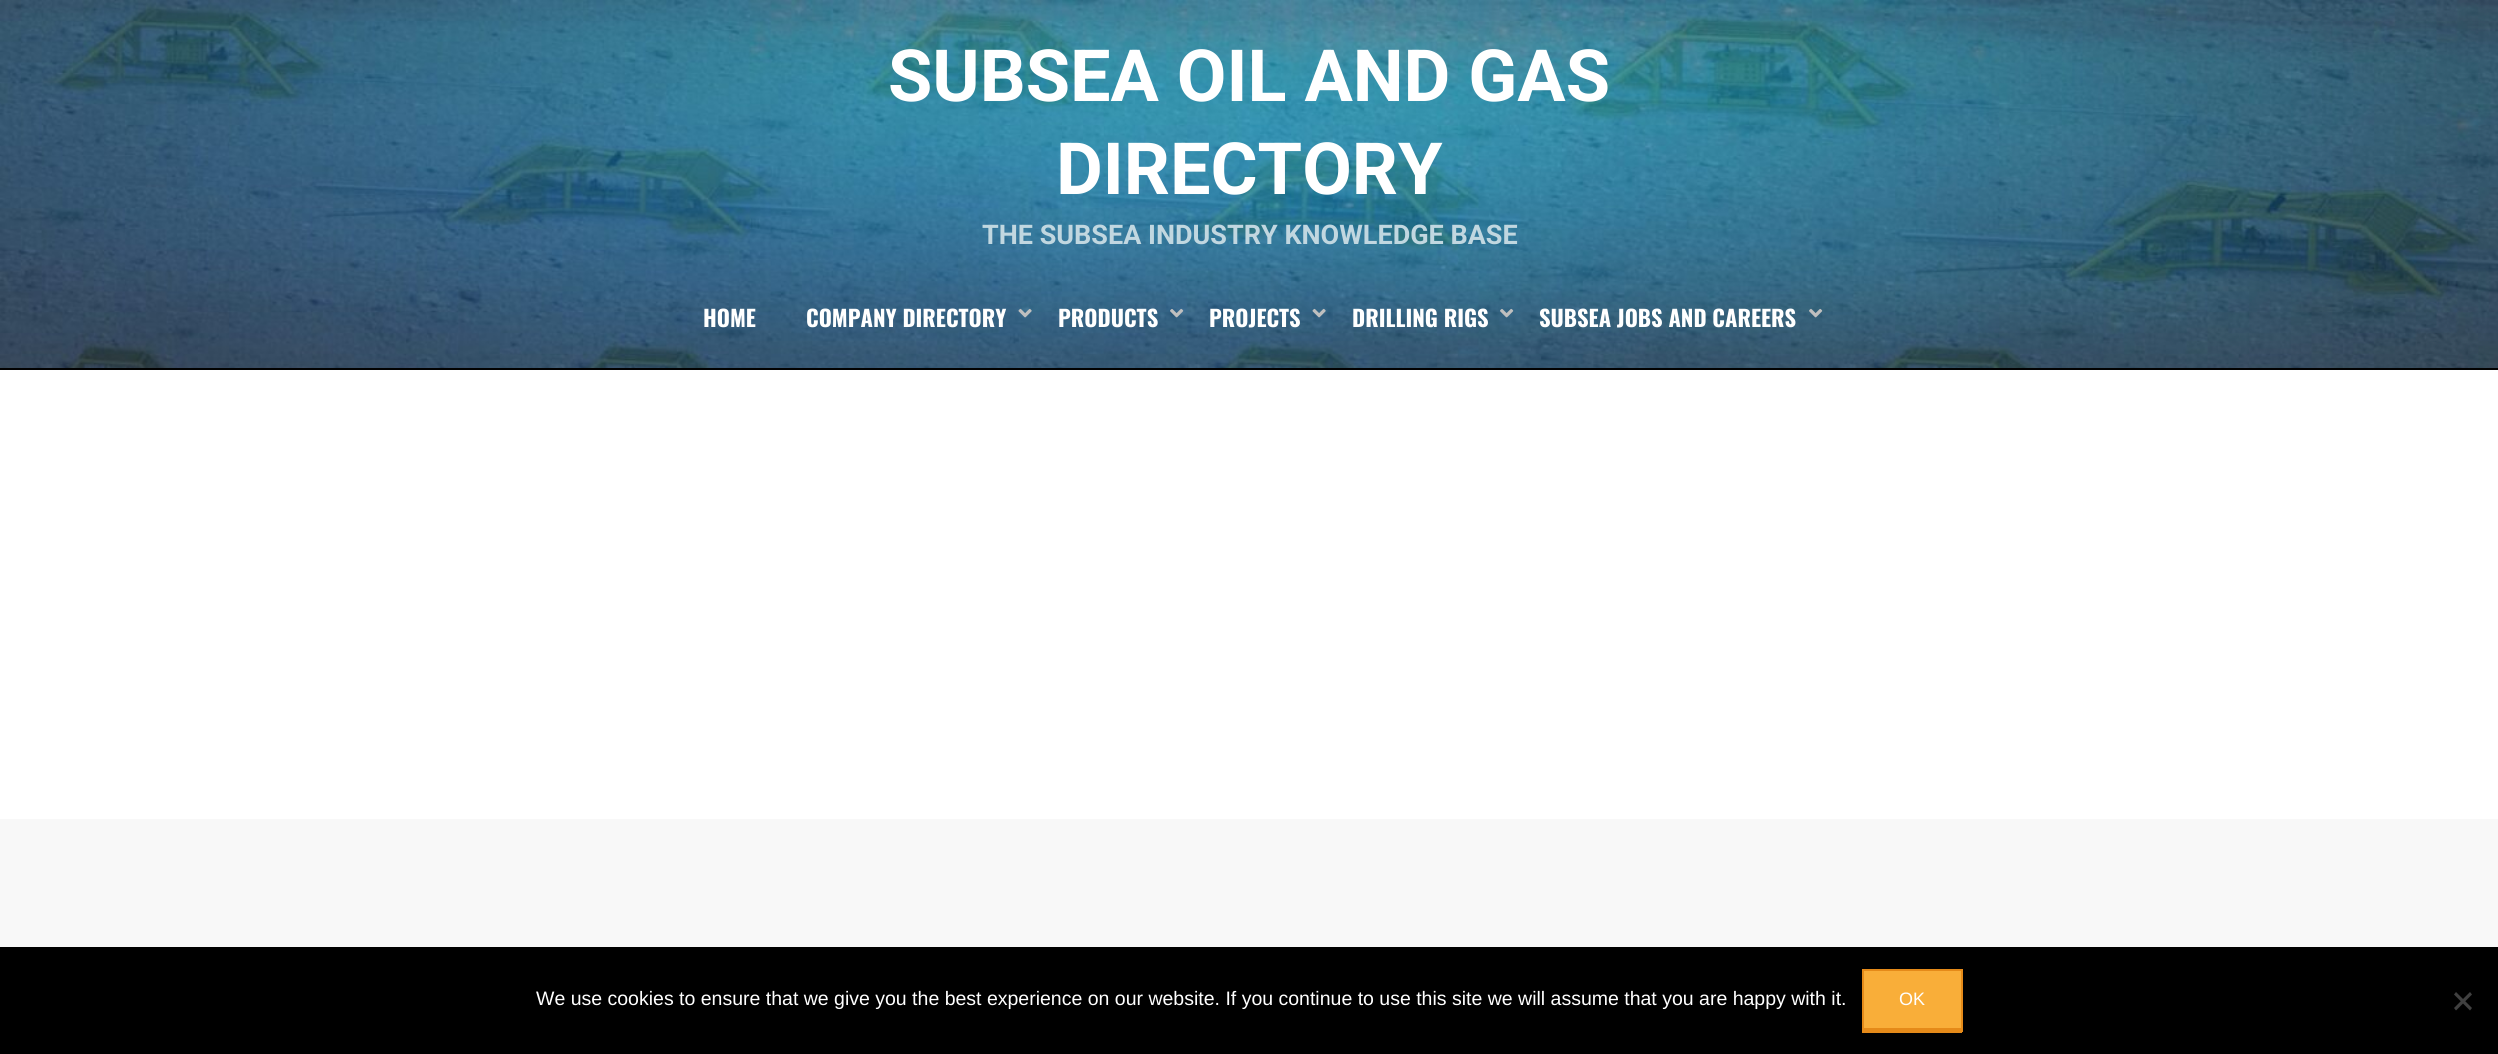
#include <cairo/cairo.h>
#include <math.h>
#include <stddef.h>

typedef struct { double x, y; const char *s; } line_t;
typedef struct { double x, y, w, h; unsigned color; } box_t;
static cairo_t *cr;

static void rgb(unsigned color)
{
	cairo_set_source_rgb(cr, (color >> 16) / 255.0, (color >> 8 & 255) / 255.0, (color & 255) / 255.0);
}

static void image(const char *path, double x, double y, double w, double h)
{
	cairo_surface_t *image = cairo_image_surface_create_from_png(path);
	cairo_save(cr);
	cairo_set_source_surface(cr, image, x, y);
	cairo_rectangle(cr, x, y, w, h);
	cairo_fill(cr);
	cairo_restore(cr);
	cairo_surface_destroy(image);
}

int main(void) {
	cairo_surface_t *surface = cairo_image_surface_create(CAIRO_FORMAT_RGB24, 2498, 1054);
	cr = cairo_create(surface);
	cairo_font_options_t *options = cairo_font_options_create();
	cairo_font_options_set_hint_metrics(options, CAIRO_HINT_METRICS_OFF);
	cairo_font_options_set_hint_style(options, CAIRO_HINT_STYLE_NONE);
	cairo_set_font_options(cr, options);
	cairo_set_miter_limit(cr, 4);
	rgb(0xffffff);
	cairo_paint(cr);
	image("img/1.png", 0, 0, 2498, 368);
	rgb(0x020202);
	cairo_rectangle(cr, 0, 368, 2498, 2);
	cairo_fill(cr);
	image("img/2.png", 1018, 308, 14, 10);
	image("img/3.png", 1170, 308, 14, 10);
	image("img/4.png", 1312, 308, 14, 10);
	image("img/5.png", 1500, 308, 14, 10);
	image("img/6.png", 1809, 308, 14, 10);
	{
		static const box_t items[] = {
			{0, 819, 2498, 128, 0xf8f8f8},
			{0, 947, 2498, 107, 0x000000},
			{1864, 971, 97, 57, 0xf9ae39},
			{1862, 969, 100, 2, 0xe58a19},
			{1961, 969, 2, 63, 0xe58a19},
			{1862, 1028, 100, 5, 0xe58a19},
			{1862, 969, 2, 63, 0xe58a19},
		};
		for (size_t i = 0; i < sizeof items / sizeof *items; i++) {
			rgb(items[i].color);
			cairo_rectangle(cr, items[i].x, items[i].y, items[i].w, items[i].h);
			cairo_fill(cr);
		}
	}
	rgb(0x404040);
	cairo_new_path(cr);
	cairo_move_to(cr, 2470, 992);
	cairo_line_to(cr, 2472, 994.5);
	cairo_line_to(cr, 2456, 1010.5);
	cairo_line_to(cr, 2454, 1008);
	cairo_close_path(cr);
	cairo_fill(cr);
	cairo_new_path(cr);
	cairo_move_to(cr, 2454, 994.5);
	cairo_line_to(cr, 2456, 992);
	cairo_line_to(cr, 2472, 1008);
	cairo_line_to(cr, 2470, 1010.5);
	cairo_close_path(cr);
	cairo_fill(cr);
	cairo_select_font_face(cr, "Roboto", CAIRO_FONT_SLANT_NORMAL, CAIRO_FONT_WEIGHT_BOLD);
	cairo_set_font_size(cr, 72);
	rgb(0xffffff);
	cairo_move_to(cr, 888, 101);
	cairo_show_text(cr, "SUBSEA OIL AND GAS");
	cairo_move_to(cr, 1056, 194);
	cairo_show_text(cr, "DIRECTORY");
	cairo_set_font_size(cr, 27);
	rgb(0xc1d7e0);
	cairo_move_to(cr, 982, 244);
	cairo_show_text(cr, "THE SUBSEA INDUSTRY KNOWLEDGE BASE");
	cairo_select_font_face(cr, "Oswald", CAIRO_FONT_SLANT_NORMAL, CAIRO_FONT_WEIGHT_BOLD);
	cairo_set_font_size(cr, 22.5);
	rgb(0xffffff);
	{
		static const line_t items[] = {
			{703, 327, "HOME"},
			{806, 327, "COMPANY DIRECTORY"},
			{1058, 327, "PRODUCTS"},
			{1209, 327, "PROJECTS"},
			{1352, 327, "DRILLING RIGS"},
			{1539, 327, "SUBSEA JOBS AND CAREERS"},
		};
		for (size_t i = 0; i < sizeof items / sizeof *items; i++) {
			cairo_move_to(cr, items[i].x, items[i].y);
			cairo_show_text(cr, items[i].s);
		}
	}
	cairo_select_font_face(cr, "Liberation Sans", CAIRO_FONT_SLANT_NORMAL, CAIRO_FONT_WEIGHT_NORMAL);
	cairo_set_font_size(cr, 19.5);
	cairo_move_to(cr, 536, 1005);
	cairo_show_text(cr, "We use cookies to ensure that we give you the best experience on our website. If you continue to use this site we will assume that you are happy with it.");
	cairo_set_font_size(cr, 18);
	cairo_move_to(cr, 1899, 1005);
	cairo_show_text(cr, "OK");
	cairo_surface_write_to_png(surface, "page.png");
	cairo_font_options_destroy(options);
	cairo_destroy(cr);
	cairo_surface_destroy(surface);
	return 0;
}
